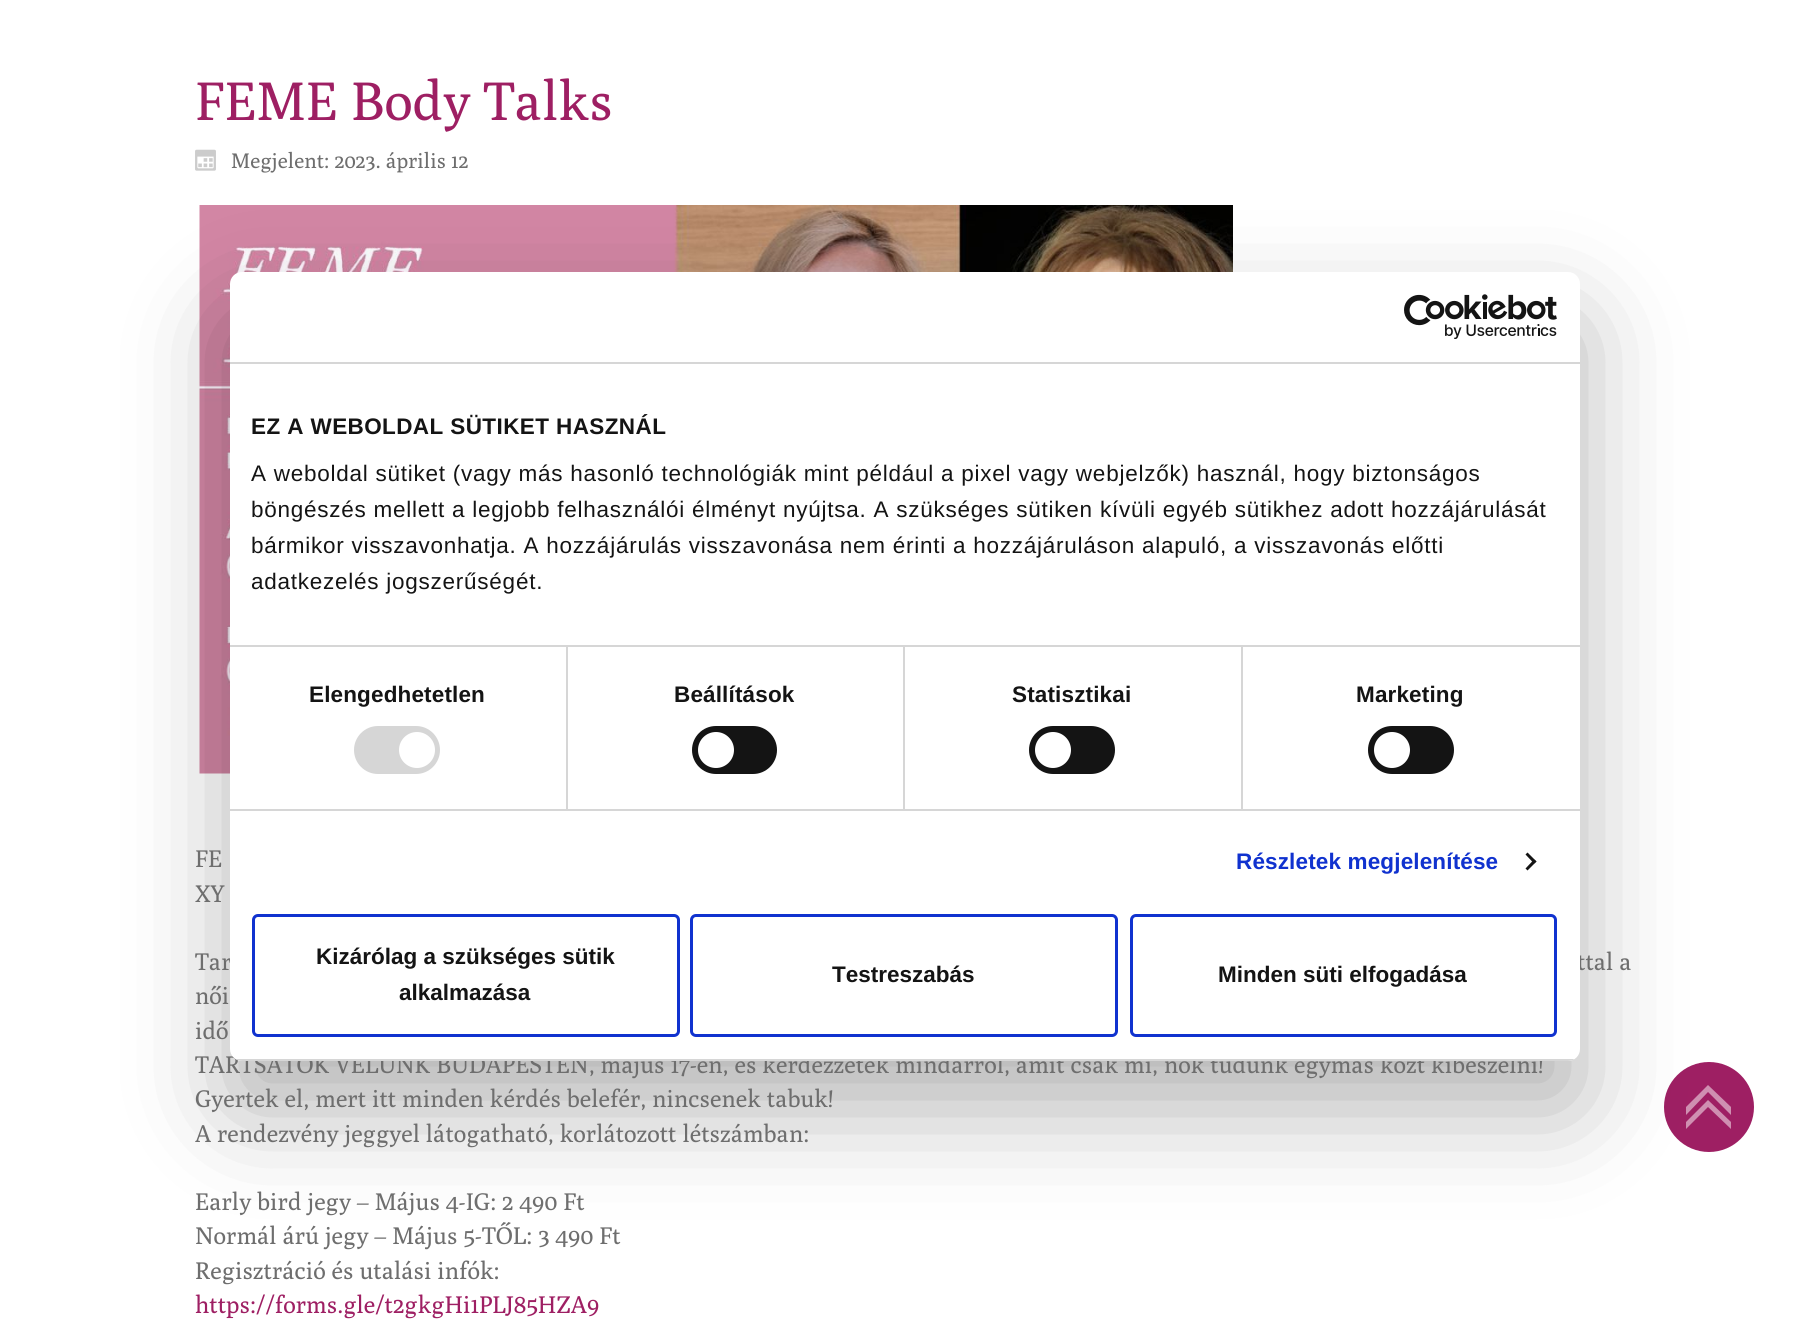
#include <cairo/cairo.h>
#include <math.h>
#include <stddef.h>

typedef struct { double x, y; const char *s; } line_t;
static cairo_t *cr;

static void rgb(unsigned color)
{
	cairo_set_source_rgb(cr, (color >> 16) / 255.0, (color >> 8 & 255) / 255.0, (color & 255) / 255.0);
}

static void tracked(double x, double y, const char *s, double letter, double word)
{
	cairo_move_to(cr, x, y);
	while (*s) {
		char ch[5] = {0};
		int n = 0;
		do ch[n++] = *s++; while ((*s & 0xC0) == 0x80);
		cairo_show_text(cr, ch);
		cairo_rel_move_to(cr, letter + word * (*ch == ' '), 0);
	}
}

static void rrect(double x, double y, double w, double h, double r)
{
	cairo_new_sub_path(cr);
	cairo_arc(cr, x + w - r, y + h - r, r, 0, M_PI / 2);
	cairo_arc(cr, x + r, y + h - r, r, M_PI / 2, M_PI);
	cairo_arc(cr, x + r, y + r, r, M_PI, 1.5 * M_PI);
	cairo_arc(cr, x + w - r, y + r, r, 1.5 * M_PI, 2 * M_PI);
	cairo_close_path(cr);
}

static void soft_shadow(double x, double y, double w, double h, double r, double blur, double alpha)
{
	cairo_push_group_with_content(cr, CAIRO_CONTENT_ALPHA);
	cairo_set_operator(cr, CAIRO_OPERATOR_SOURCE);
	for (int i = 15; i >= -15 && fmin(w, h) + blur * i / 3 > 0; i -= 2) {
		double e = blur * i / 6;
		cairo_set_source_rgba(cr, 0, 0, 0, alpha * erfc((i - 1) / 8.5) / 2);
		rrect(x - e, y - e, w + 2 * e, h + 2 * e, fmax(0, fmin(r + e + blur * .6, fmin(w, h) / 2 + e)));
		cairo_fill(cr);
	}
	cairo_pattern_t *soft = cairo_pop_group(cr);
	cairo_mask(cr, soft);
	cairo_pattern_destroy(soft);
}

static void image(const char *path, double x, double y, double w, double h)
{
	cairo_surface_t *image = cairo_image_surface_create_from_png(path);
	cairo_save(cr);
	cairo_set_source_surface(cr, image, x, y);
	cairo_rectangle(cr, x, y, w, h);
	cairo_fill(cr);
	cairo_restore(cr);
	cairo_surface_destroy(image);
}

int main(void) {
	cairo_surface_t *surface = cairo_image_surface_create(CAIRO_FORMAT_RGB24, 1807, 1331);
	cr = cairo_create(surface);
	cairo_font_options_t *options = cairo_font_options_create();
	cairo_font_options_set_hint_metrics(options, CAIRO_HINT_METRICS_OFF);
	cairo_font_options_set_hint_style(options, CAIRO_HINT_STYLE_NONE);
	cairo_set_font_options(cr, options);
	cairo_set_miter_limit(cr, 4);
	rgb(0xffffff);
	cairo_paint(cr);
	image("img/1.png", 195, 149, 21, 22);
	image("img/2.png", 199, 205, 1034, 569);
	rgb(0x9e1f63);
	cairo_arc(cr, 1709, 1107, 45, 0, 2 * M_PI);
	cairo_fill(cr);
	rgb(0xcf8fb1);
	cairo_new_path(cr);
	cairo_move_to(cr, 1708, 1100);
	cairo_line_to(cr, 1731, 1122);
	cairo_line_to(cr, 1731, 1129);
	cairo_line_to(cr, 1708, 1107);
	cairo_line_to(cr, 1686, 1129);
	cairo_line_to(cr, 1686, 1122);
	cairo_close_path(cr);
	cairo_move_to(cr, 1731, 1115);
	cairo_line_to(cr, 1708, 1092);
	cairo_line_to(cr, 1686, 1115);
	cairo_line_to(cr, 1686, 1107);
	cairo_line_to(cr, 1708, 1085);
	cairo_line_to(cr, 1731, 1107);
	cairo_close_path(cr);
	cairo_fill(cr);
	rgb(0x000000);
	soft_shadow(230, 320, 1350, 789, 12, 51, 0.3);
	cairo_select_font_face(cr, "Poly", CAIRO_FONT_SLANT_NORMAL, CAIRO_FONT_WEIGHT_NORMAL);
	cairo_set_font_size(cr, 54);
	rgb(0x9e1f63);
	cairo_move_to(cr, 195, 120);
	cairo_show_text(cr, "FEME Body Talks");
	cairo_set_font_size(cr, 21);
	rgb(0x6e6e6e);
	cairo_move_to(cr, 231, 168);
	cairo_show_text(cr, "Megjelent: 2023. április 12");
	cairo_set_font_size(cr, 24);
	{
		static const line_t items[] = {
			{195, 867, "FE"},
			{195, 902, "XY"},
			{195, 970, "Tar"},
			{1577, 970, "ttal a"},
			{195, 1004, "női"},
			{195, 1039, "idő"},
			{195, 1073, "TARTSATOK VELÜNK BUDAPESTEN, május 17-én, és kérdezzetek mindarról, amit csak mi, nők tudunk egymás közt kibeszélni!"},
			{195, 1107, "Gyertek el, mert itt minden kérdés belefér, nincsenek tabuk!"},
			{195, 1142, "A rendezvény jeggyel látogatható, korlátozott létszámban:"},
			{195, 1210, "Early bird jegy – Május 4-IG: 2 490 Ft"},
			{195, 1244, "Normál árú jegy – Május 5-TŐL: 3 490 Ft"},
			{195, 1279, "Regisztráció és utalási infók:"},
		};
		for (size_t i = 0; i < sizeof items / sizeof *items; i++) {
			cairo_move_to(cr, items[i].x, items[i].y);
			cairo_show_text(cr, items[i].s);
		}
	}
	rgb(0x9e1f63);
	cairo_move_to(cr, 195, 1313);
	cairo_show_text(cr, "https://forms.gle/t2gkgHi1PLJ85HZA9");
	rgb(0xffffff);
	rrect(230, 272, 1350, 789, 12);
	cairo_fill(cr);
	rgb(0xd6d6d6);
	cairo_rectangle(cr, 230, 362, 1350, 2);
	cairo_fill(cr);
	image("img/3.png", 1404, 294, 153, 45);
	cairo_rectangle(cr, 230, 645, 1350, 2);
	cairo_fill(cr);
	cairo_select_font_face(cr, "Liberation Sans", CAIRO_FONT_SLANT_NORMAL, CAIRO_FONT_WEIGHT_BOLD);
	cairo_set_font_size(cr, 22.5);
	rgb(0x141414);
	tracked(251, 434, "EZ A WEBOLDAL SÜTIKET HASZNÁL", 0.4, 0);
	cairo_select_font_face(cr, "Liberation Sans", CAIRO_FONT_SLANT_NORMAL, CAIRO_FONT_WEIGHT_NORMAL);
	{
		static const line_t items[] = {
			{251, 481, "A weboldal sütiket (vagy más hasonló technológiák mint például a pixel vagy webjelzők) használ, hogy biztonságos"},
			{251, 517, "böngészés mellett a legjobb felhasználói élményt nyújtsa. A szükséges sütiken kívüli egyéb sütikhez adott hozzájárulását"},
			{251, 553, "bármikor visszavonhatja. A hozzájárulás visszavonása nem érinti a hozzájáruláson alapuló, a visszavonás előtti"},
			{251, 589, "adatkezelés jogszerűségét."},
		};
		for (size_t i = 0; i < sizeof items / sizeof *items; i++) {
			tracked(items[i].x, items[i].y, items[i].s, 0.75, 0);
		}
	}
	rgb(0xd6d6d6);
	cairo_rectangle(cr, 230, 809, 1350, 2);
	cairo_fill(cr);
	cairo_rectangle(cr, 566, 647, 2, 162);
	cairo_fill(cr);
	cairo_select_font_face(cr, "Liberation Sans", CAIRO_FONT_SLANT_NORMAL, CAIRO_FONT_WEIGHT_BOLD);
	rgb(0x141414);
	tracked(309, 702, "Elengedhetetlen", 0.15, 0);
	rgb(0xd6d6d6);
	rrect(354, 726, 86, 48, 24);
	cairo_fill(cr);
	rgb(0xffffff);
	cairo_arc(cr, 417, 750, 18, 0, 2 * M_PI);
	cairo_fill(cr);
	rgb(0xd6d6d6);
	cairo_rectangle(cr, 903, 647, 2, 162);
	cairo_fill(cr);
	rgb(0x141414);
	tracked(674, 702, "Beállítások", 0.15, 0);
	rrect(692, 726, 85, 48, 24);
	cairo_fill(cr);
	rgb(0xffffff);
	cairo_arc(cr, 716, 750, 18, 0, 2 * M_PI);
	cairo_fill(cr);
	rgb(0xd6d6d6);
	cairo_rectangle(cr, 1241, 647, 2, 162);
	cairo_fill(cr);
	rgb(0x141414);
	tracked(1012, 702, "Statisztikai", 0.15, 0);
	rrect(1029, 726, 86, 48, 24);
	cairo_fill(cr);
	rgb(0xffffff);
	cairo_arc(cr, 1053, 750, 18, 0, 2 * M_PI);
	cairo_fill(cr);
	rgb(0x141414);
	tracked(1356, 702, "Marketing", 0.15, 0);
	rrect(1368, 726, 86, 48, 24);
	cairo_fill(cr);
	rgb(0xffffff);
	cairo_arc(cr, 1392, 750, 18, 0, 2 * M_PI);
	cairo_fill(cr);
	rgb(0x1032cf);
	tracked(1236, 869, "Részletek megjelenítése", 0.15, 0);
	rgb(0x141414);
	cairo_new_path(cr);
	cairo_move_to(cr, 1527.5, 852.5);
	cairo_line_to(cr, 1536.5, 861.5);
	cairo_line_to(cr, 1534, 863.5);
	cairo_line_to(cr, 1525.5, 854.5);
	cairo_close_path(cr);
	cairo_fill(cr);
	cairo_new_path(cr);
	cairo_move_to(cr, 1534, 859.5);
	cairo_line_to(cr, 1536.5, 861.5);
	cairo_line_to(cr, 1527.5, 870.5);
	cairo_line_to(cr, 1525.5, 868.5);
	cairo_close_path(cr);
	cairo_fill(cr);
	cairo_save(cr);
	rrect(230, 272, 1350, 789, 12);
	cairo_clip(cr);
	rgb(0xd6d6d6);
	cairo_rectangle(cr, 230, 1059, 1350, 2);
	cairo_fill(cr);
	cairo_restore(cr);
	rrect(253.5, 915.5, 425, 120, 4.5);
	rgb(0x1032cf);
	cairo_set_line_width(cr, 3);
	cairo_stroke(cr);
	rgb(0x141414);
	cairo_move_to(cr, 316, 964);
	cairo_show_text(cr, "Kizárólag a szükséges sütik");
	cairo_move_to(cr, 399, 1000);
	cairo_show_text(cr, "alkalmazása");
	rrect(691.5, 915.5, 425, 120, 4.5);
	rgb(0x1032cf);
	cairo_stroke(cr);
	rgb(0x141414);
	cairo_move_to(cr, 832, 982);
	cairo_show_text(cr, "Testreszabás");
	rrect(1131.5, 915.5, 424, 120, 4.5);
	rgb(0x1032cf);
	cairo_stroke(cr);
	rgb(0x141414);
	cairo_move_to(cr, 1218, 982);
	cairo_show_text(cr, "Minden süti elfogadása");
	cairo_surface_write_to_png(surface, "page.png");
	cairo_font_options_destroy(options);
	cairo_destroy(cr);
	cairo_surface_destroy(surface);
	return 0;
}
